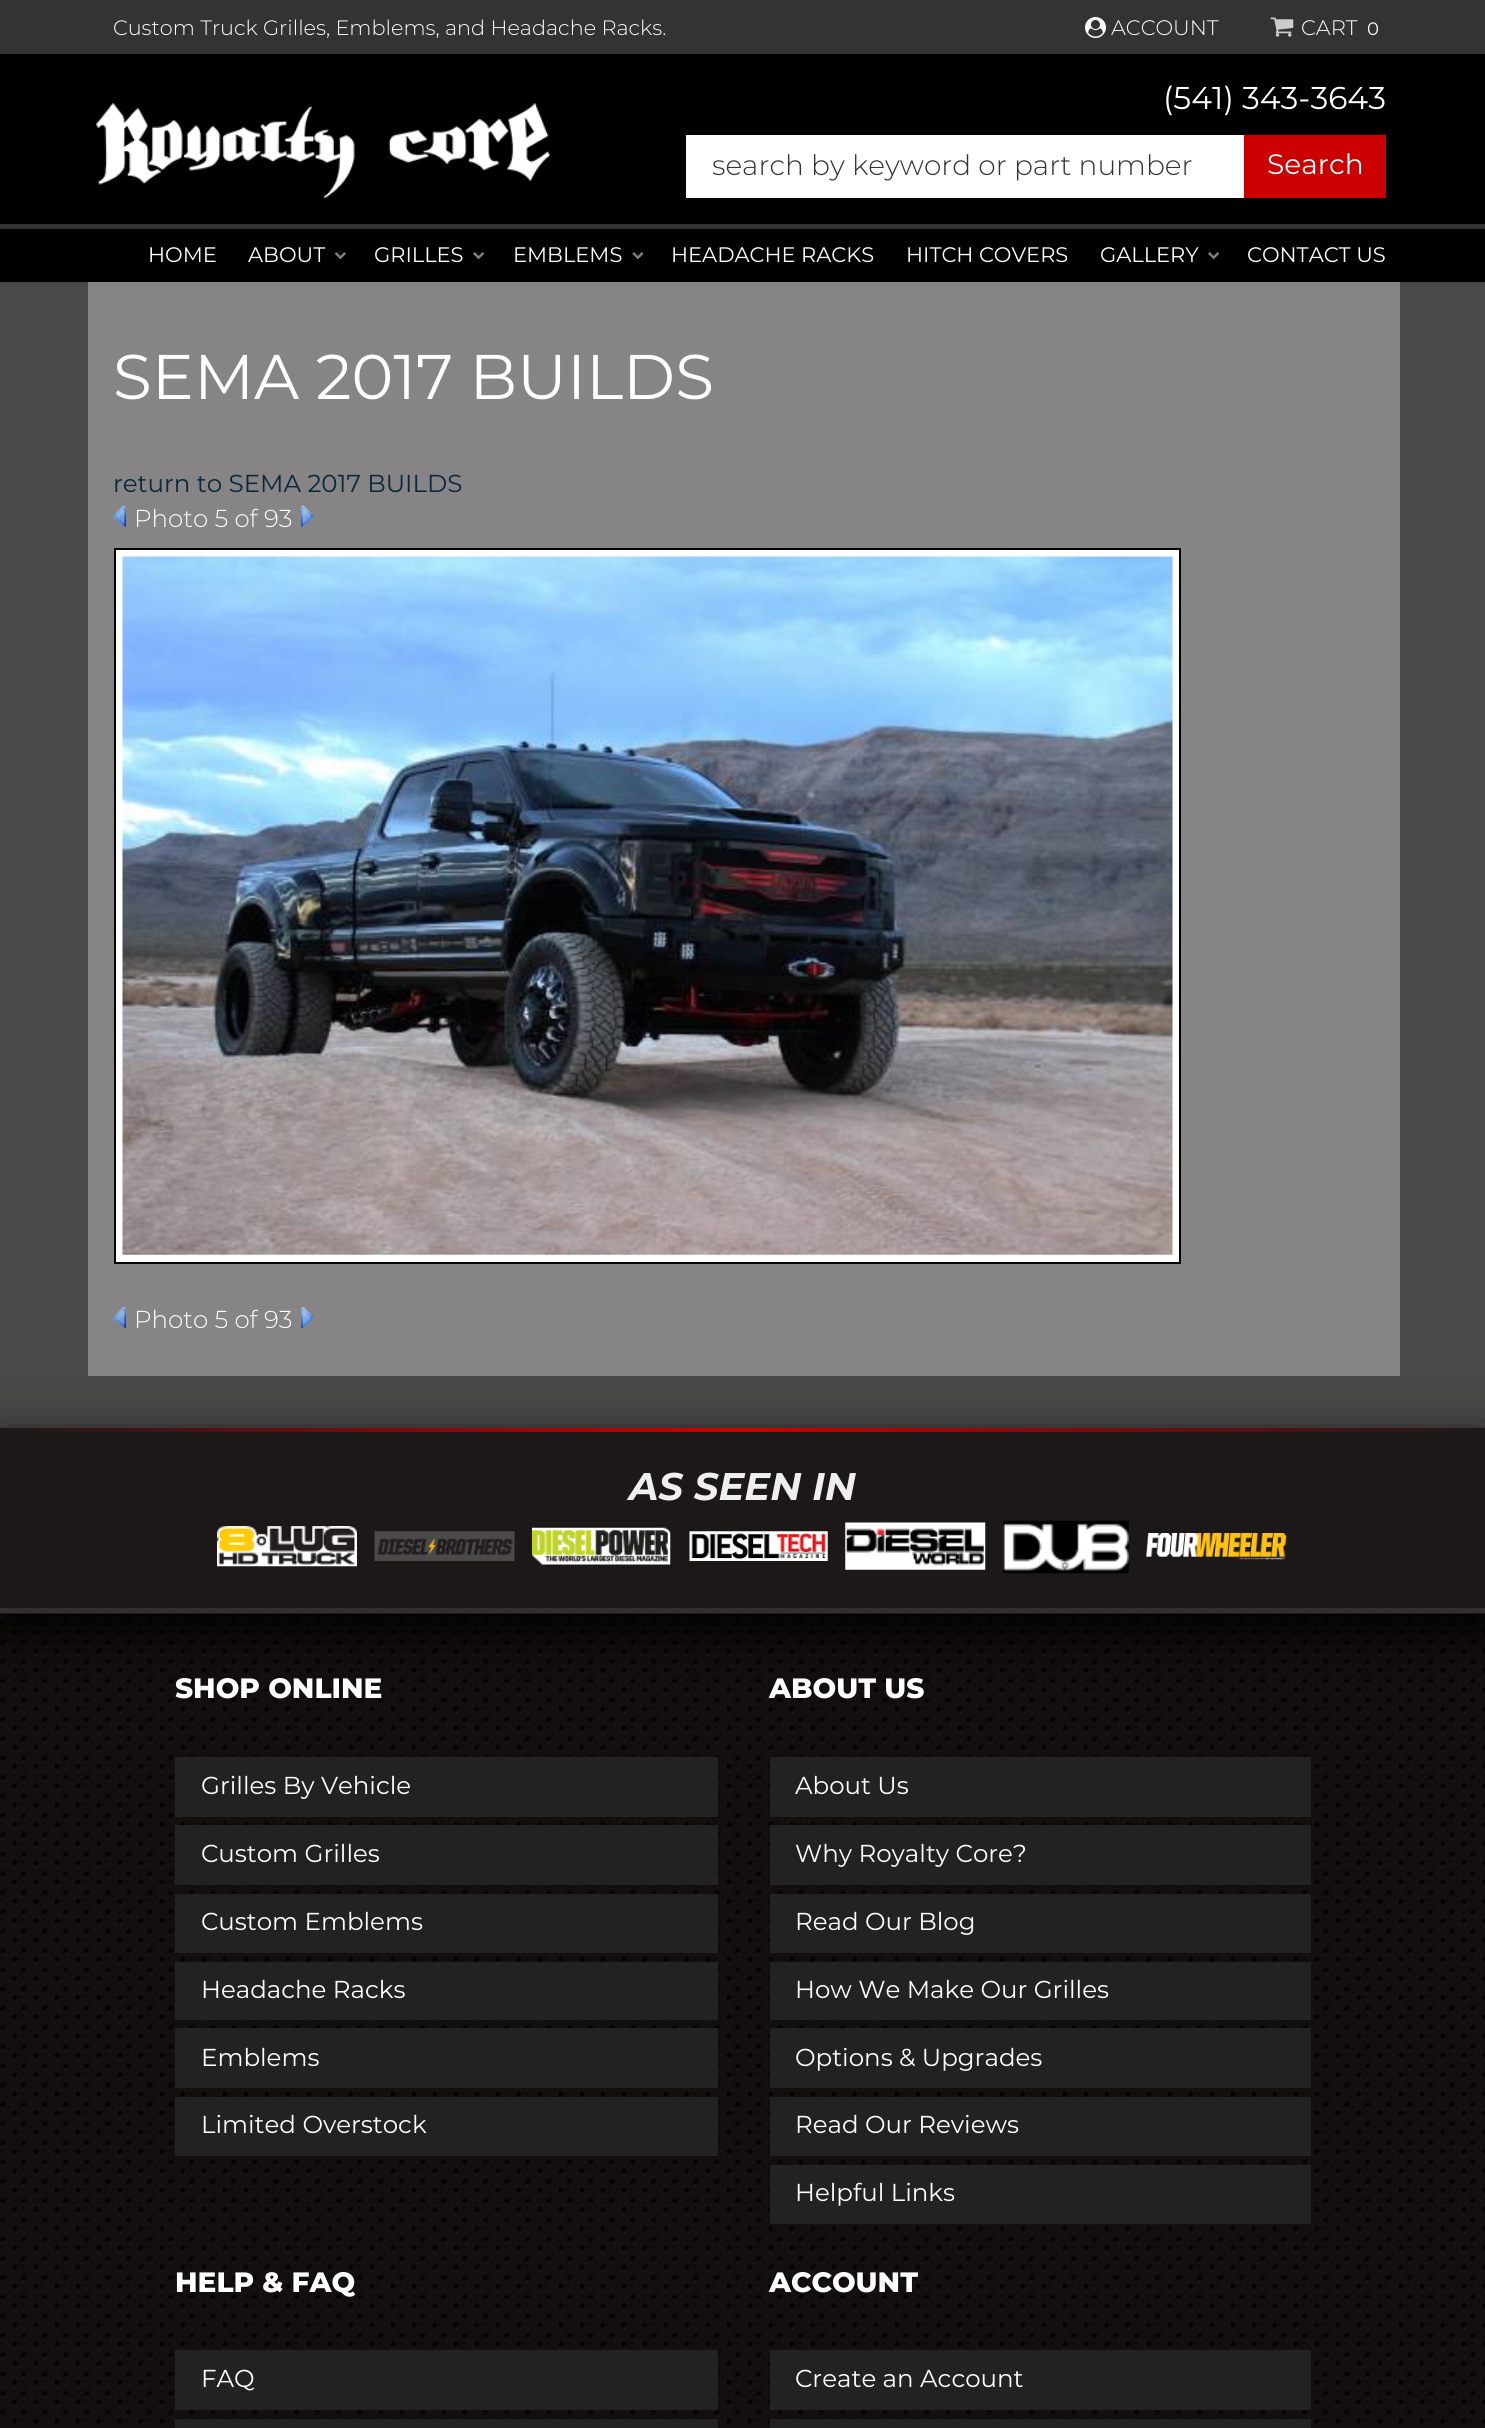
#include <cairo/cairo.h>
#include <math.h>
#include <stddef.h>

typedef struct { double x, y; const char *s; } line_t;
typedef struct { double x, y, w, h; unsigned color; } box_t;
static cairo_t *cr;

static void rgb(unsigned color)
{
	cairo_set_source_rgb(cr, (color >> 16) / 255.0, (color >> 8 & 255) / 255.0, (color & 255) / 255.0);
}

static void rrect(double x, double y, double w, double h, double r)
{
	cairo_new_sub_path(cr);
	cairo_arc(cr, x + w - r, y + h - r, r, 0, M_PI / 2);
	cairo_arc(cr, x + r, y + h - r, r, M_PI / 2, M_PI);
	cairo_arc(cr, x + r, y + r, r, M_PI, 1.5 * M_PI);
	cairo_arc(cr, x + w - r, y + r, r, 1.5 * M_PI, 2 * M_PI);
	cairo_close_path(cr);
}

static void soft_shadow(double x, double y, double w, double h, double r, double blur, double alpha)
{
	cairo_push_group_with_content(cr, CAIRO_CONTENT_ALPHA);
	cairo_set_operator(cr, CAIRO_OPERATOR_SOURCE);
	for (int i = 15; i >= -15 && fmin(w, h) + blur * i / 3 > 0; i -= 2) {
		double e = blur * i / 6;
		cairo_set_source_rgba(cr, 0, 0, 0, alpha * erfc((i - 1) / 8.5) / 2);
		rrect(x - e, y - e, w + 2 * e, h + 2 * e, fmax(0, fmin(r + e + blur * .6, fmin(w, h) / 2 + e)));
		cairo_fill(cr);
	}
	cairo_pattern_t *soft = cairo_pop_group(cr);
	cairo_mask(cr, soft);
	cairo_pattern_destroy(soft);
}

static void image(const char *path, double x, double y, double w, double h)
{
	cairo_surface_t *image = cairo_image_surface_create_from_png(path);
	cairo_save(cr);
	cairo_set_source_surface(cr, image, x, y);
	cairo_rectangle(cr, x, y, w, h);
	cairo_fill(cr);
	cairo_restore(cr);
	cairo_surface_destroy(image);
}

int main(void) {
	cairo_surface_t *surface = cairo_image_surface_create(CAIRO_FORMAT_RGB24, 1485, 2428);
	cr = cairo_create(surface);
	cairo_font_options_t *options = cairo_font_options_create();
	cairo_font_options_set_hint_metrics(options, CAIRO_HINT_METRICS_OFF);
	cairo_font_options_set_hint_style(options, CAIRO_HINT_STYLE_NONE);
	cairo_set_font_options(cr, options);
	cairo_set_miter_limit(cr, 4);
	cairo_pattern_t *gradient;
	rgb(0x4b4848);
	cairo_paint(cr);
	rgb(0x333333);
	cairo_rectangle(cr, 0, 0, 1485, 54);
	cairo_fill(cr);
	image("img/1.png", 1085, 17, 21, 21);
	rgb(0x000000);
	cairo_rectangle(cr, 0, 54, 1485, 228);
	cairo_fill(cr);
	image("img/2.png", 1270, 17, 24, 20);
	image("img/3.png", 96, 103, 454, 95);
	rgb(0xcc0000);
	cairo_rectangle(cr, 1244, 135, 142, 63);
	cairo_fill(cr);
	cairo_set_source_rgba(cr, 0, 0, 0, 0.04);
	cairo_new_path(cr);
	cairo_move_to(cr, 684, 135);
	cairo_line_to(cr, 684, 201);
	cairo_line_to(cr, 1246, 201);
	cairo_line_to(cr, 1246, 135);
	cairo_line_to(cr, 1244, 135);
	cairo_line_to(cr, 1244, 198);
	cairo_line_to(cr, 686, 198);
	cairo_line_to(cr, 686, 135);
	cairo_close_path(cr);
	cairo_fill(cr);
	rgb(0xffffff);
	cairo_rectangle(cr, 686, 135, 558, 63);
	cairo_fill(cr);
	rgb(0x333333);
	cairo_rectangle(cr, 0, 224, 1485, 5);
	cairo_fill(cr);
	image("img/4.png", 334, 252, 12, 8);
	image("img/5.png", 473, 252, 12, 8);
	image("img/6.png", 632, 252, 12, 8);
	image("img/5.png", 1208, 252, 12, 8);
	rgb(0x868484);
	cairo_rectangle(cr, 88, 282, 1312, 1094);
	cairo_fill(cr);
	image("img/7.png", 113, 505, 13, 22);
	image("img/8.png", 301, 505, 13, 22);
	rgb(0xffffff);
	cairo_rectangle(cr, 115, 549, 1065, 714);
	cairo_fill_preserve(cr);
	rgb(0x000000);
	cairo_stroke(cr);
	image("img/9.png", 122, 556, 1051, 699);
	image("img/10.png", 113, 1307, 13, 22);
	image("img/11.png", 301, 1307, 13, 22);
	rgb(0x130f0f);
	cairo_rectangle(cr, 0, 2424, 1485, 4);
	cairo_fill(cr);
	image("img/12.png", 0, 1614, 1485, 810);
	rgb(0x000000);
	soft_shadow(0, 1446, 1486, 185, 0, 26, 1);
	rgb(0x1d1818);
	cairo_rectangle(cr, 0, 1432, 1485, 182);
	cairo_fill(cr);
	rgb(0x342f2f);
	cairo_rectangle(cr, 0, 1608, 1485, 5);
	cairo_fill(cr);
	gradient = cairo_pattern_create_linear(0, 1430, 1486, 1430);
	cairo_pattern_add_color_stop_rgba(gradient, 0, 0.114, 0.094, 0.094, 1);
	cairo_pattern_add_color_stop_rgba(gradient, 0.5, 0.8, 0, 0, 1);
	cairo_pattern_add_color_stop_rgba(gradient, 1, 0.114, 0.094, 0.094, 1);
	cairo_set_source(cr, gradient);
	cairo_pattern_destroy(gradient);
	cairo_rectangle(cr, 0, 1428, 1485, 4);
	cairo_fill(cr);
	image("img/13.png", 217, 1526, 140, 41);
	image("img/14.png", 374, 1531, 141, 30);
	image("img/15.png", 532, 1527, 139, 38);
	image("img/16.png", 689, 1531, 139, 30);
	image("img/17.png", 845, 1522, 141, 48);
	image("img/18.png", 1002, 1520, 127, 54);
	image("img/19.png", 1146, 1533, 141, 27);
	{
		static const box_t items[] = {
			{175, 1757, 543, 60, 0x222222},
			{175, 1825, 543, 60, 0x222222},
			{175, 1894, 543, 59, 0x222222},
			{175, 1962, 543, 58, 0x222222},
			{175, 2028, 543, 60, 0x222222},
			{175, 2097, 543, 59, 0x222222},
			{770, 1757, 541, 60, 0x222222},
			{770, 1825, 541, 60, 0x222222},
			{770, 1894, 541, 59, 0x222222},
			{770, 1962, 541, 58, 0x222222},
			{770, 2028, 541, 60, 0x222222},
			{770, 2097, 541, 59, 0x222222},
			{770, 2165, 541, 59, 0x222222},
			{175, 2350, 543, 60, 0x222222},
			{175, 2419, 543, 9, 0x222222},
			{770, 2350, 541, 60, 0x222222},
			{770, 2419, 541, 9, 0x222222},
		};
		for (size_t i = 0; i < sizeof items / sizeof *items; i++) {
			rgb(items[i].color);
			cairo_rectangle(cr, items[i].x, items[i].y, items[i].w, items[i].h);
			cairo_fill(cr);
		}
	}
	cairo_select_font_face(cr, "Montserrat Light", CAIRO_FONT_SLANT_NORMAL, CAIRO_FONT_WEIGHT_NORMAL);
	cairo_set_font_size(cr, 20.8);
	rgb(0xffffff);
	cairo_move_to(cr, 113, 35);
	cairo_show_text(cr, "Custom Truck Grilles, Emblems, and Headache Racks.");
	cairo_set_font_size(cr, 21);
	cairo_move_to(cr, 1111, 35);
	cairo_show_text(cr, "ACCOUNT");
	cairo_move_to(cr, 1301, 35);
	cairo_show_text(cr, "CART");
	cairo_select_font_face(cr, "Montserrat", CAIRO_FONT_SLANT_NORMAL, CAIRO_FONT_WEIGHT_NORMAL);
	cairo_set_font_size(cr, 18);
	cairo_move_to(cr, 1367, 35);
	cairo_show_text(cr, "0");
	cairo_set_font_size(cr, 31.5);
	cairo_move_to(cr, 1163, 109);
	cairo_show_text(cr, "(541) 343-3643");
	cairo_select_font_face(cr, "Montserrat Light", CAIRO_FONT_SLANT_NORMAL, CAIRO_FONT_WEIGHT_NORMAL);
	cairo_set_font_size(cr, 28);
	rgb(0x333333);
	cairo_move_to(cr, 712, 175);
	cairo_show_text(cr, "search by keyword or part number");
	cairo_select_font_face(cr, "Montserrat", CAIRO_FONT_SLANT_NORMAL, CAIRO_FONT_WEIGHT_NORMAL);
	rgb(0xffffff);
	cairo_move_to(cr, 1267, 174);
	cairo_show_text(cr, "Search");
	cairo_set_font_size(cr, 21);
	{
		static const line_t items[] = {
			{148, 262, "HOME"},
			{248, 262, "ABOUT"},
			{374, 262, "GRILLES"},
			{513, 262, "EMBLEMS"},
			{671, 262, "HEADACHE RACKS"},
			{906, 262, "HITCH COVERS"},
			{1100, 262, "GALLERY"},
			{1247, 262, "CONTACT US"},
		};
		for (size_t i = 0; i < sizeof items / sizeof *items; i++) {
			cairo_move_to(cr, items[i].x, items[i].y);
			cairo_show_text(cr, items[i].s);
		}
	}
	cairo_set_font_size(cr, 63);
	cairo_move_to(cr, 113, 399);
	cairo_show_text(cr, "SEMA 2017 BUILDS");
	cairo_set_font_size(cr, 24.5);
	rgb(0x07283c);
	cairo_move_to(cr, 113, 492);
	cairo_show_text(cr, "return to SEMA 2017 BUILDS");
	cairo_select_font_face(cr, "Montserrat Light", CAIRO_FONT_SLANT_NORMAL, CAIRO_FONT_WEIGHT_NORMAL);
	rgb(0xffffff);
	cairo_move_to(cr, 134, 527);
	cairo_show_text(cr, "Photo 5 of 93");
	cairo_move_to(cr, 134, 1328);
	cairo_show_text(cr, "Photo 5 of 93");
	cairo_select_font_face(cr, "Montserrat", CAIRO_FONT_SLANT_ITALIC, CAIRO_FONT_WEIGHT_BOLD);
	cairo_set_font_size(cr, 38.5);
	rgb(0xefefef);
	cairo_move_to(cr, 629, 1500);
	cairo_show_text(cr, "AS SEEN IN");
	cairo_select_font_face(cr, "Montserrat ExtraBold", CAIRO_FONT_SLANT_NORMAL, CAIRO_FONT_WEIGHT_NORMAL);
	cairo_set_font_size(cr, 28);
	rgb(0xffffff);
	cairo_move_to(cr, 175, 1698);
	cairo_show_text(cr, "SHOP ONLINE");
	cairo_select_font_face(cr, "Montserrat", CAIRO_FONT_SLANT_NORMAL, CAIRO_FONT_WEIGHT_NORMAL);
	cairo_set_font_size(cr, 24.5);
	{
		static const line_t items[] = {
			{201, 1794, "Grilles By Vehicle"},
			{201, 1862, "Custom Grilles"},
			{201, 1930, "Custom Emblems"},
			{201, 1998, "Headache Racks"},
			{201, 2066, "Emblems"},
			{201, 2133, "Limited Overstock"},
		};
		for (size_t i = 0; i < sizeof items / sizeof *items; i++) {
			cairo_move_to(cr, items[i].x, items[i].y);
			cairo_show_text(cr, items[i].s);
		}
	}
	cairo_select_font_face(cr, "Montserrat ExtraBold", CAIRO_FONT_SLANT_NORMAL, CAIRO_FONT_WEIGHT_NORMAL);
	cairo_set_font_size(cr, 28);
	cairo_move_to(cr, 769, 1698);
	cairo_show_text(cr, "ABOUT US");
	cairo_select_font_face(cr, "Montserrat", CAIRO_FONT_SLANT_NORMAL, CAIRO_FONT_WEIGHT_NORMAL);
	cairo_set_font_size(cr, 24.5);
	{
		static const line_t items[] = {
			{795, 1794, "About Us"},
			{795, 1862, "Why Royalty Core?"},
			{795, 1930, "Read Our Blog"},
			{795, 1998, "How We Make Our Grilles"},
			{795, 2066, "Options & Upgrades"},
			{795, 2133, "Read Our Reviews"},
			{795, 2201, "Helpful Links"},
		};
		for (size_t i = 0; i < sizeof items / sizeof *items; i++) {
			cairo_move_to(cr, items[i].x, items[i].y);
			cairo_show_text(cr, items[i].s);
		}
	}
	cairo_select_font_face(cr, "Montserrat ExtraBold", CAIRO_FONT_SLANT_NORMAL, CAIRO_FONT_WEIGHT_NORMAL);
	cairo_set_font_size(cr, 28);
	cairo_move_to(cr, 175, 2292);
	cairo_show_text(cr, "HELP & FAQ");
	cairo_select_font_face(cr, "Montserrat", CAIRO_FONT_SLANT_NORMAL, CAIRO_FONT_WEIGHT_NORMAL);
	cairo_set_font_size(cr, 24.5);
	cairo_move_to(cr, 201, 2387);
	cairo_show_text(cr, "FAQ");
	cairo_select_font_face(cr, "Montserrat ExtraBold", CAIRO_FONT_SLANT_NORMAL, CAIRO_FONT_WEIGHT_NORMAL);
	cairo_set_font_size(cr, 28);
	cairo_move_to(cr, 769, 2292);
	cairo_show_text(cr, "ACCOUNT");
	cairo_select_font_face(cr, "Montserrat", CAIRO_FONT_SLANT_NORMAL, CAIRO_FONT_WEIGHT_NORMAL);
	cairo_set_font_size(cr, 24.5);
	cairo_move_to(cr, 795, 2387);
	cairo_show_text(cr, "Create an Account");
	cairo_surface_write_to_png(surface, "page.png");
	cairo_font_options_destroy(options);
	cairo_destroy(cr);
	cairo_surface_destroy(surface);
	return 0;
}
